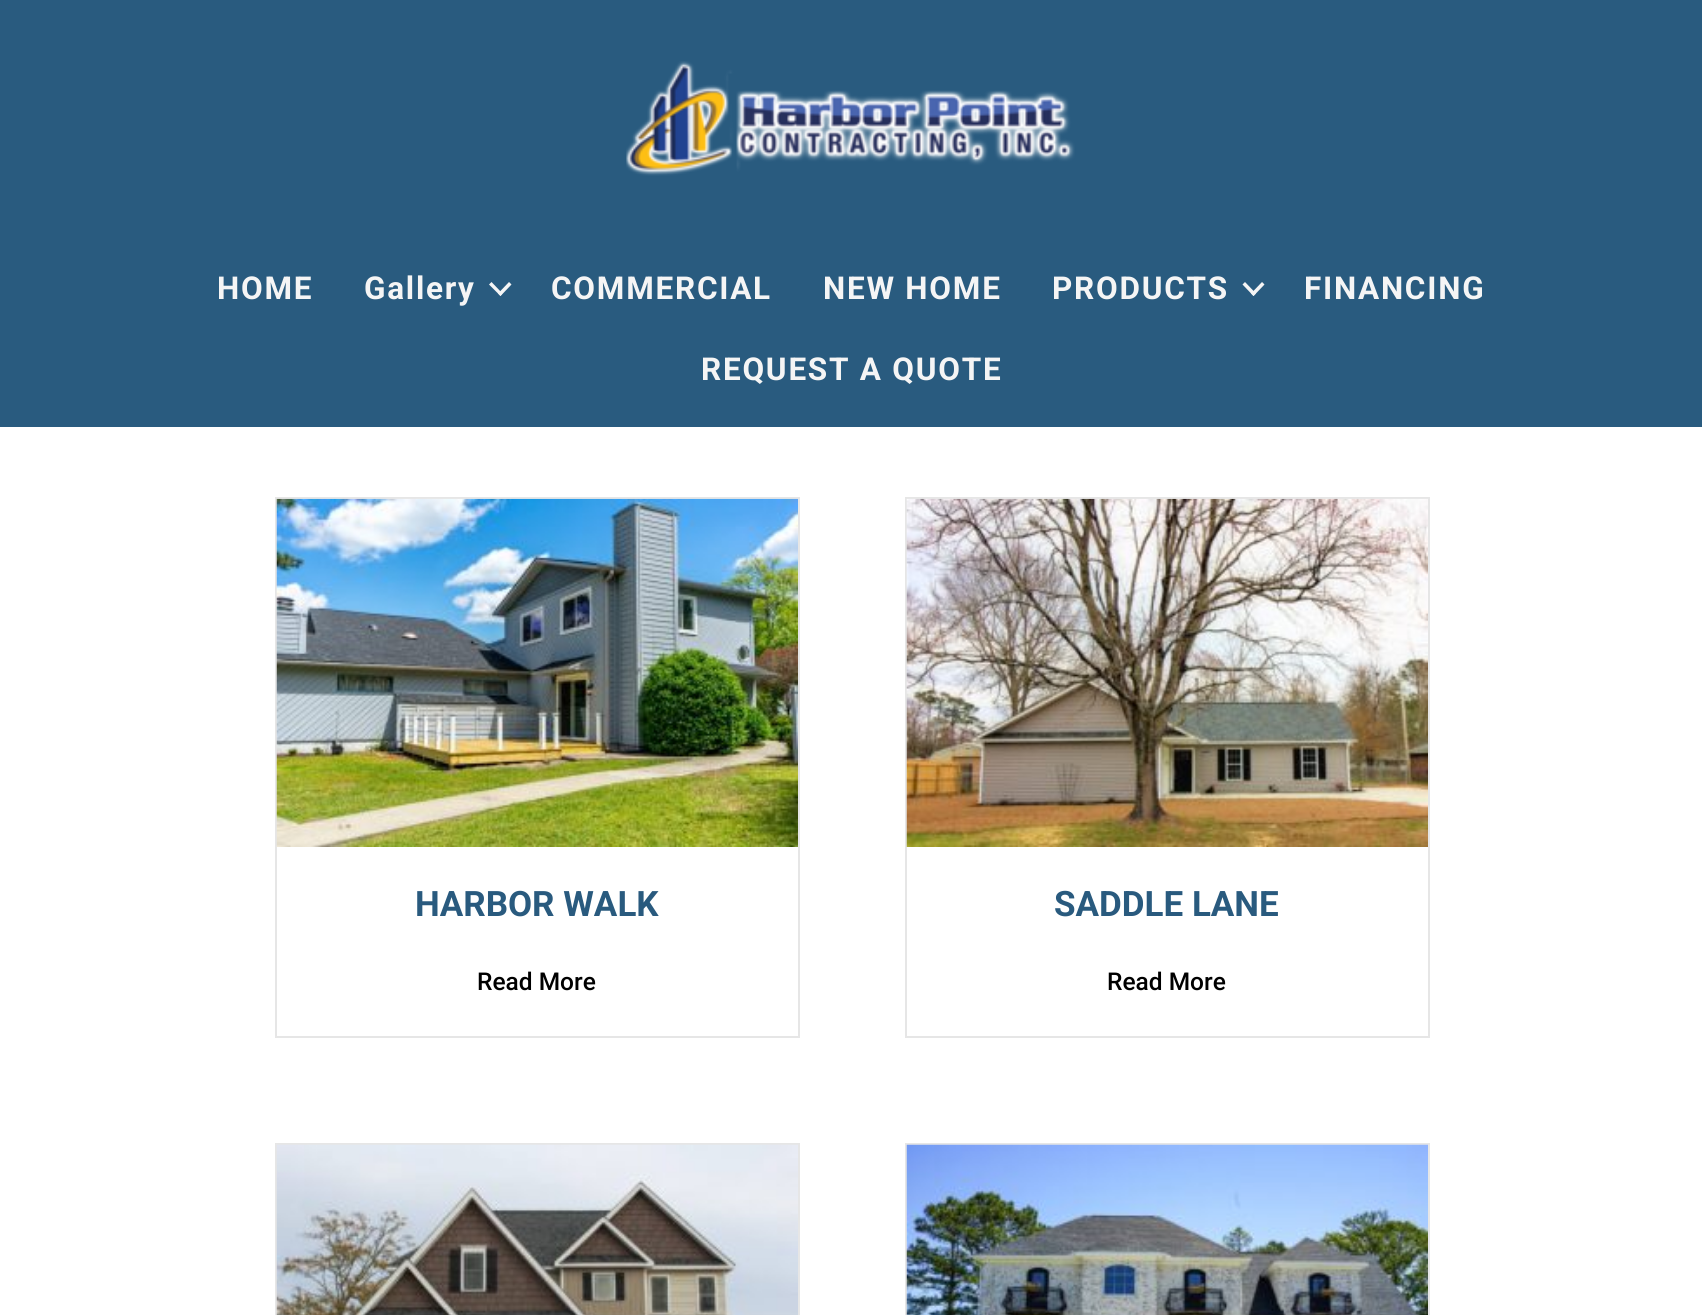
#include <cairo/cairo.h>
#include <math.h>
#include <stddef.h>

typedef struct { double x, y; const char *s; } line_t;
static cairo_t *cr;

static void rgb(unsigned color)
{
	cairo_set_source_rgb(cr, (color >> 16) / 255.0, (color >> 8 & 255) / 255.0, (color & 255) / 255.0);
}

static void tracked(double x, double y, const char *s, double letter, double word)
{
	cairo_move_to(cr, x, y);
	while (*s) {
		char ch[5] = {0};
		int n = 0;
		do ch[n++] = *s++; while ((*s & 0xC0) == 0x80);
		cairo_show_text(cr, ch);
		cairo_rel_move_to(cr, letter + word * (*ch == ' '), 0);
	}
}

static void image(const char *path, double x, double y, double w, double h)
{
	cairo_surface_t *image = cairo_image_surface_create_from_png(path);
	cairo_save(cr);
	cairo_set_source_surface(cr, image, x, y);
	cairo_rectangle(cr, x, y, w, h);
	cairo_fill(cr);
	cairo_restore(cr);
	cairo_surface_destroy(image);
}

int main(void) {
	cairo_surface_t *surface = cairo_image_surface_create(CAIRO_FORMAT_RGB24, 1702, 1315);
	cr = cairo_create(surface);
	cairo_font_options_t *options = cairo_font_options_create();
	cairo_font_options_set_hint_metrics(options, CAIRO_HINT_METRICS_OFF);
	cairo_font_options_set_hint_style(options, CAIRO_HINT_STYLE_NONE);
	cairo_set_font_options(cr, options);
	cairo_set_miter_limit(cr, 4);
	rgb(0xffffff);
	cairo_paint(cr);
	rgb(0x295b7f);
	cairo_rectangle(cr, 0, 0, 1702, 427);
	cairo_fill(cr);
	image("img/1.png", 626, 61, 449, 115);
	rgb(0xf5f5f5);
	cairo_new_path(cr);
	cairo_move_to(cr, 509, 282);
	cairo_line_to(cr, 511.5, 284.5);
	cairo_line_to(cr, 500.5, 296);
	cairo_line_to(cr, 498, 293.5);
	cairo_close_path(cr);
	cairo_fill(cr);
	cairo_new_path(cr);
	cairo_move_to(cr, 491.5, 282);
	cairo_line_to(cr, 502.5, 293.5);
	cairo_line_to(cr, 500.5, 296);
	cairo_line_to(cr, 489, 284.5);
	cairo_close_path(cr);
	cairo_fill(cr);
	cairo_new_path(cr);
	cairo_move_to(cr, 1262, 282);
	cairo_line_to(cr, 1264.5, 284.5);
	cairo_line_to(cr, 1253.5, 296);
	cairo_line_to(cr, 1251, 293.5);
	cairo_close_path(cr);
	cairo_fill(cr);
	cairo_new_path(cr);
	cairo_move_to(cr, 1245, 282);
	cairo_line_to(cr, 1256, 293.5);
	cairo_line_to(cr, 1253.5, 296);
	cairo_line_to(cr, 1242.5, 284.5);
	cairo_close_path(cr);
	cairo_fill(cr);
	cairo_rectangle(cr, 276, 498, 523, 539);
	rgb(0xe6e6e6);
	cairo_stroke(cr);
	image("img/2.png", 276, 498, 522, 349);
	cairo_rectangle(cr, 906, 498, 523, 539);
	cairo_stroke(cr);
	image("img/3.png", 906, 498, 522, 349);
	cairo_rectangle(cr, 276, 1144, 523, 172);
	cairo_stroke(cr);
	image("img/4.png", 276, 1144, 522, 171);
	cairo_rectangle(cr, 906, 1144, 523, 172);
	cairo_stroke(cr);
	image("img/5.png", 906, 1144, 522, 171);
	cairo_select_font_face(cr, "Roboto", CAIRO_FONT_SLANT_NORMAL, CAIRO_FONT_WEIGHT_BOLD);
	cairo_set_font_size(cr, 31.5);
	rgb(0xf5f5f5);
	{
		static const line_t items[] = {
			{217, 299, "HOME"},
			{364, 299, "Gallery"},
			{551, 299, "COMMERCIAL"},
			{823, 299, "NEW HOME"},
			{1052, 299, "PRODUCTS"},
			{1304, 299, "FINANCING"},
			{701, 380, "REQUEST A QUOTE"},
		};
		for (size_t i = 0; i < sizeof items / sizeof *items; i++) {
			tracked(items[i].x, items[i].y, items[i].s, 1.75, 0);
		}
	}
	cairo_set_font_size(cr, 35);
	rgb(0x295a7e);
	cairo_move_to(cr, 415, 916);
	cairo_show_text(cr, "HARBOR WALK");
	cairo_select_font_face(cr, "Roboto Medium", CAIRO_FONT_SLANT_NORMAL, CAIRO_FONT_WEIGHT_NORMAL);
	cairo_set_font_size(cr, 24.5);
	rgb(0x000000);
	cairo_move_to(cr, 477, 990);
	cairo_show_text(cr, "Read More");
	cairo_select_font_face(cr, "Roboto", CAIRO_FONT_SLANT_NORMAL, CAIRO_FONT_WEIGHT_BOLD);
	cairo_set_font_size(cr, 35);
	rgb(0x295a7e);
	cairo_move_to(cr, 1054, 916);
	cairo_show_text(cr, "SADDLE LANE");
	cairo_select_font_face(cr, "Roboto Medium", CAIRO_FONT_SLANT_NORMAL, CAIRO_FONT_WEIGHT_NORMAL);
	cairo_set_font_size(cr, 24.5);
	rgb(0x000000);
	cairo_move_to(cr, 1107, 990);
	cairo_show_text(cr, "Read More");
	cairo_surface_write_to_png(surface, "page.png");
	cairo_font_options_destroy(options);
	cairo_destroy(cr);
	cairo_surface_destroy(surface);
	return 0;
}
